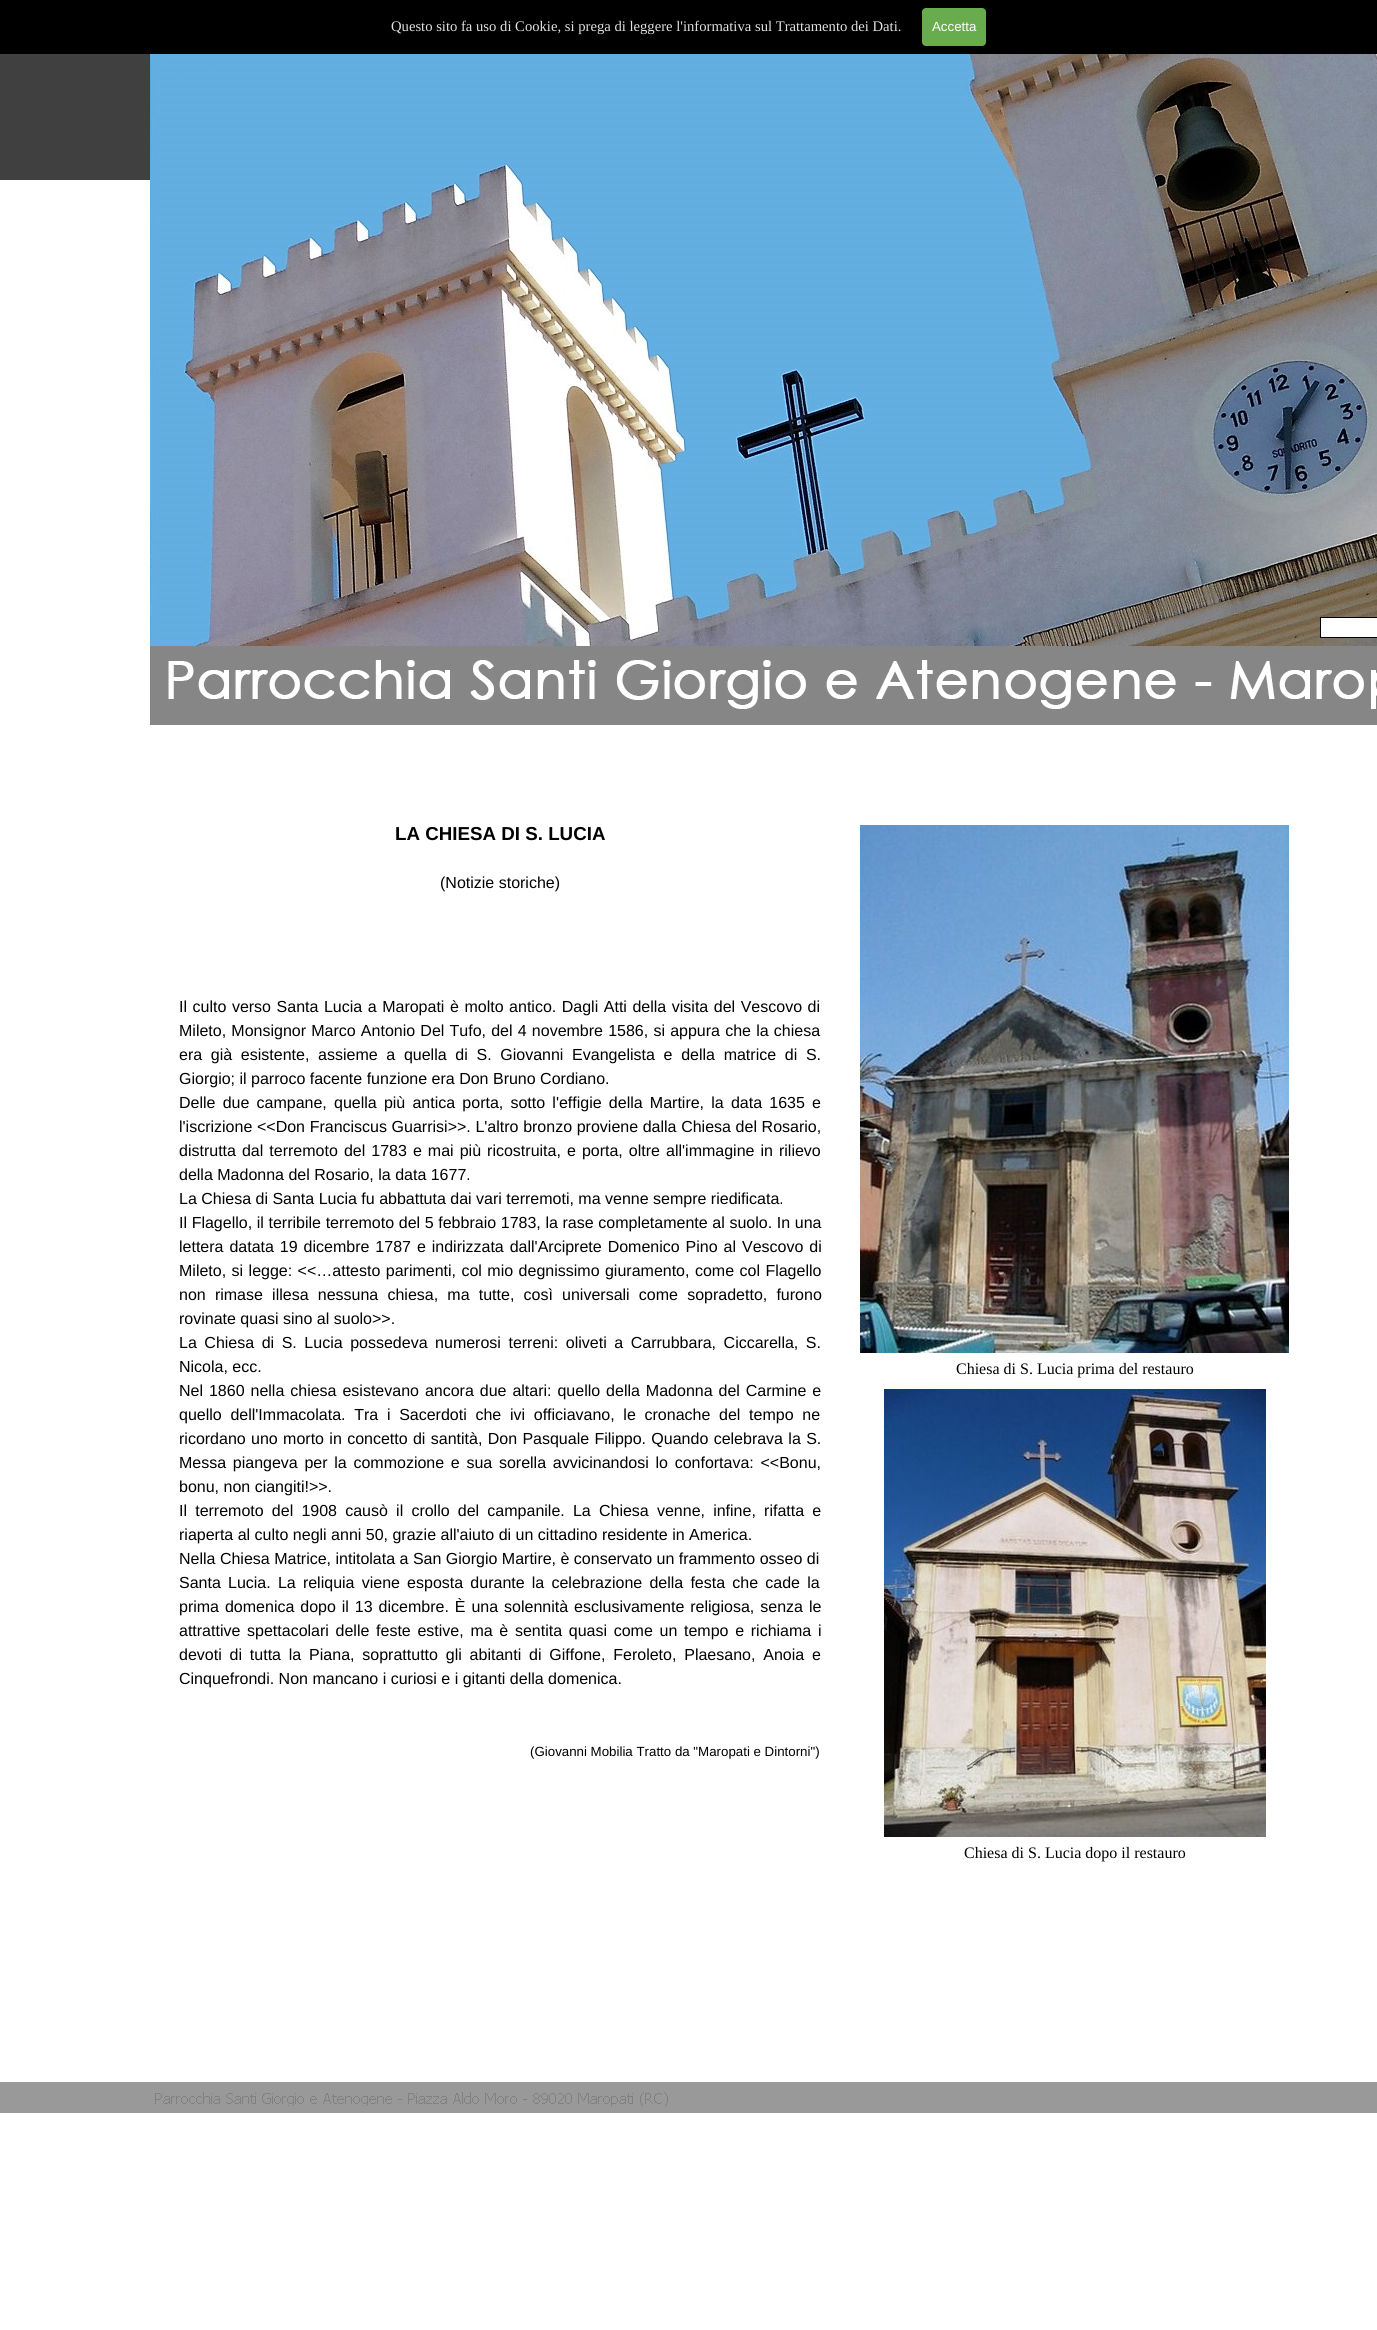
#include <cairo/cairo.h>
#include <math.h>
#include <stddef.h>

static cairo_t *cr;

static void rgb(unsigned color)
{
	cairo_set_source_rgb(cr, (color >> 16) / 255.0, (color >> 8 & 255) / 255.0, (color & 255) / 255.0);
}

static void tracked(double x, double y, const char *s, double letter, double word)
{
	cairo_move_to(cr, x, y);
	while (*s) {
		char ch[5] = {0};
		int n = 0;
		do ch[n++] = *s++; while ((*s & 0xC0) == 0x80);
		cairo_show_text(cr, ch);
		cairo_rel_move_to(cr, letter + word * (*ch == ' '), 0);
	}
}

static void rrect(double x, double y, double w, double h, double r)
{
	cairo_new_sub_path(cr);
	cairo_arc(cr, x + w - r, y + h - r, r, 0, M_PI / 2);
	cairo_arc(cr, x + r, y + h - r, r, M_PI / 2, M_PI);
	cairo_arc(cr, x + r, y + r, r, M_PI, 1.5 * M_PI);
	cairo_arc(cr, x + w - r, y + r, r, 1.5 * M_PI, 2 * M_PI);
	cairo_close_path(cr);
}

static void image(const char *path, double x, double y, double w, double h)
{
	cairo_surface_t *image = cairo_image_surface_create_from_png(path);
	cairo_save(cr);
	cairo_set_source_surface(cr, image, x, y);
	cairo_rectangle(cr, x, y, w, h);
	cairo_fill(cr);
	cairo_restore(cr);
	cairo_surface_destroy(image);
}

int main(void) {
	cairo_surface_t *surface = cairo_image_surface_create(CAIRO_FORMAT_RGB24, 1377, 2330);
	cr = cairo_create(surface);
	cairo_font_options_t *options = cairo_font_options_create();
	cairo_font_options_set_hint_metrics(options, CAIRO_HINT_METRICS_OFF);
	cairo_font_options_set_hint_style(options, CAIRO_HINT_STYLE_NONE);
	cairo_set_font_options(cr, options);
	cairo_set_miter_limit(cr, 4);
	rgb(0xffffff);
	cairo_paint(cr);
	rgb(0x000000);
	cairo_rectangle(cr, 0, 0, 1377, 54);
	cairo_fill(cr);
	rgb(0x69ac4d);
	rrect(922, 8, 64, 38, 4);
	cairo_fill(cr);
	image("img/1.png", 0, 54, 150, 126);
	image("img/2.png", 150, 54, 1227, 592);
	rgb(0xffffff);
	cairo_rectangle(cr, 1320.5, 617.5, 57, 20);
	cairo_fill_preserve(cr);
	rgb(0x000000);
	cairo_set_line_width(cr, 1);
	cairo_stroke(cr);
	image("img/3.png", 150, 646, 1227, 79);
	image("img/4.png", 860, 825, 429, 528);
	image("img/5.png", 884, 1389, 382, 448);
	rgb(0x999999);
	cairo_rectangle(cr, 0, 2082, 1377, 31);
	cairo_fill(cr);
	image("img/6.png", 155, 2092, 513, 14);
	cairo_select_font_face(cr, "Liberation Serif", CAIRO_FONT_SLANT_NORMAL, CAIRO_FONT_WEIGHT_NORMAL);
	cairo_set_font_size(cr, 14.65);
	rgb(0xe0e0e0);
	cairo_move_to(cr, 391, 31);
	cairo_show_text(cr, "Questo sito fa uso di Cookie, si prega di leggere l'informativa sul Trattamento dei Dati.");
	cairo_select_font_face(cr, "Liberation Sans", CAIRO_FONT_SLANT_NORMAL, CAIRO_FONT_WEIGHT_NORMAL);
	cairo_set_font_size(cr, 13.3);
	rgb(0xffffff);
	cairo_move_to(cr, 932, 31);
	cairo_show_text(cr, "Accetta");
	cairo_select_font_face(cr, "Liberation Sans", CAIRO_FONT_SLANT_NORMAL, CAIRO_FONT_WEIGHT_BOLD);
	cairo_set_font_size(cr, 18.75);
	rgb(0x000000);
	cairo_move_to(cr, 395, 840);
	cairo_show_text(cr, "LA CHIESA DI S. LUCIA");
	cairo_select_font_face(cr, "Liberation Sans", CAIRO_FONT_SLANT_NORMAL, CAIRO_FONT_WEIGHT_NORMAL);
	cairo_set_font_size(cr, 16);
	cairo_move_to(cr, 440, 888);
	cairo_show_text(cr, "(Notizie storiche)");
	tracked(179, 1012, "Il culto verso Santa Lucia a Maropati è molto antico. Dagli Atti della visita del Vescovo di", 0, 1.1);
	tracked(179, 1036, "Mileto, Monsignor Marco Antonio Del Tufo, del 4 novembre 1586, si appura che la chiesa", 0, 0.75);
	tracked(179, 1060, "era già esistente, assieme a quella di S. Giovanni Evangelista e della matrice di S.", 0, 4.25);
	cairo_move_to(cr, 179, 1084);
	cairo_show_text(cr, "Giorgio; il parroco facente funzione era Don Bruno Cordiano.");
	tracked(179, 1108, "Delle due campane, quella più antica porta, sotto l'effigie della Martire, la data 1635 e", 0, 2.75);
	tracked(179, 1132, "l'iscrizione <<Don Franciscus Guarrisi>>. L'altro bronzo proviene dalla Chiesa del Rosario,", 0, 0.2);
	tracked(179, 1156, "distrutta dal terremoto del 1783 e mai più ricostruita, e porta, oltre all'immagine in rilievo", 0, 1.6);
	cairo_move_to(cr, 179, 1180);
	cairo_show_text(cr, "della Madonna del Rosario, la data 1677.");
	cairo_move_to(cr, 179, 1204);
	cairo_show_text(cr, "La Chiesa di Santa Lucia fu abbattuta dai vari terremoti, ma venne sempre riedificata.");
	tracked(179, 1228, "Il Flagello, il terribile terremoto del 5 febbraio 1783, la rase completamente al suolo. In una", 0, 0.2);
	tracked(179, 1252, "lettera datata 19 dicembre 1787 e indirizzata dall'Arciprete Domenico Pino al Vescovo di", 0, 1.5);
	tracked(179, 1276, "Mileto, si legge: <<…attesto parimenti, col mio degnissimo giuramento, come col Flagello", 0, 1);
	tracked(179, 1300, "non rimase illesa nessuna chiesa, ma tutte, così universali come sopradetto, furono", 0, 4.75);
	cairo_move_to(cr, 179, 1324);
	cairo_show_text(cr, "rovinate quasi sino al suolo>>.");
	tracked(179, 1348, "La Chiesa di S. Lucia possedeva numerosi terreni: oliveti a Carrubbara, Ciccarella, S.", 0, 3.1);
	cairo_move_to(cr, 179, 1372);
	cairo_show_text(cr, "Nicola, ecc.");
	tracked(179, 1396, "Nel 1860 nella chiesa esistevano ancora due altari: quello della Madonna del Carmine e", 0, 1.5);
	tracked(179, 1420, "quello dell'Immacolata. Tra i Sacerdoti che ivi officiavano, le cronache del tempo ne", 0, 4.25);
	tracked(179, 1444, "ricordano uno morto in concetto di santità, Don Pasquale Filippo. Quando celebrava la S.", 0, 0.9);
	tracked(179, 1468, "Messa piangeva per la commozione e sua sorella avvicinandosi lo confortava: <<Bonu,", 0, 2.25);
	cairo_move_to(cr, 179, 1492);
	cairo_show_text(cr, "bonu, non ciangiti!>>.");
	tracked(179, 1516, "Il terremoto del 1908 causò il crollo del campanile. La Chiesa venne, infine, rifatta e", 0, 3.75);
	cairo_move_to(cr, 179, 1540);
	cairo_show_text(cr, "riaperta al culto negli anni 50, grazie all'aiuto di un cittadino residente in America.");
	cairo_move_to(cr, 179, 1564);
	cairo_show_text(cr, "Nella Chiesa Matrice, intitolata a San Giorgio Martire, è conservato un frammento osseo di");
	tracked(179, 1588, "Santa Lucia. La reliquia viene esposta durante la celebrazione della festa che cade la", 0, 2.75);
	tracked(179, 1612, "prima domenica dopo il 13 dicembre. È una solennità esclusivamente religiosa, senza le", 0, 1.5);
	tracked(179, 1636, "attrattive spettacolari delle feste estive, ma è sentita quasi come un tempo e richiama i", 0, 2.25);
	tracked(179, 1660, "devoti di tutta la Piana, soprattutto gli abitanti di Giffone, Feroleto, Plaesano, Anoia e", 0, 3.4);
	cairo_move_to(cr, 179, 1684);
	cairo_show_text(cr, "Cinquefrondi. Non mancano i curiosi e i gitanti della domenica.");
	cairo_set_font_size(cr, 13.3);
	cairo_move_to(cr, 530, 1756);
	cairo_show_text(cr, "(Giovanni Mobilia Tratto da \"Maropati e Dintorni\")");
	cairo_select_font_face(cr, "Liberation Serif", CAIRO_FONT_SLANT_NORMAL, CAIRO_FONT_WEIGHT_NORMAL);
	cairo_set_font_size(cr, 16);
	cairo_move_to(cr, 956, 1374);
	cairo_show_text(cr, "Chiesa di S. Lucia prima del restauro");
	cairo_move_to(cr, 964, 1858);
	cairo_show_text(cr, "Chiesa di S. Lucia dopo il restauro");
	cairo_surface_write_to_png(surface, "page.png");
	cairo_font_options_destroy(options);
	cairo_destroy(cr);
	cairo_surface_destroy(surface);
	return 0;
}
